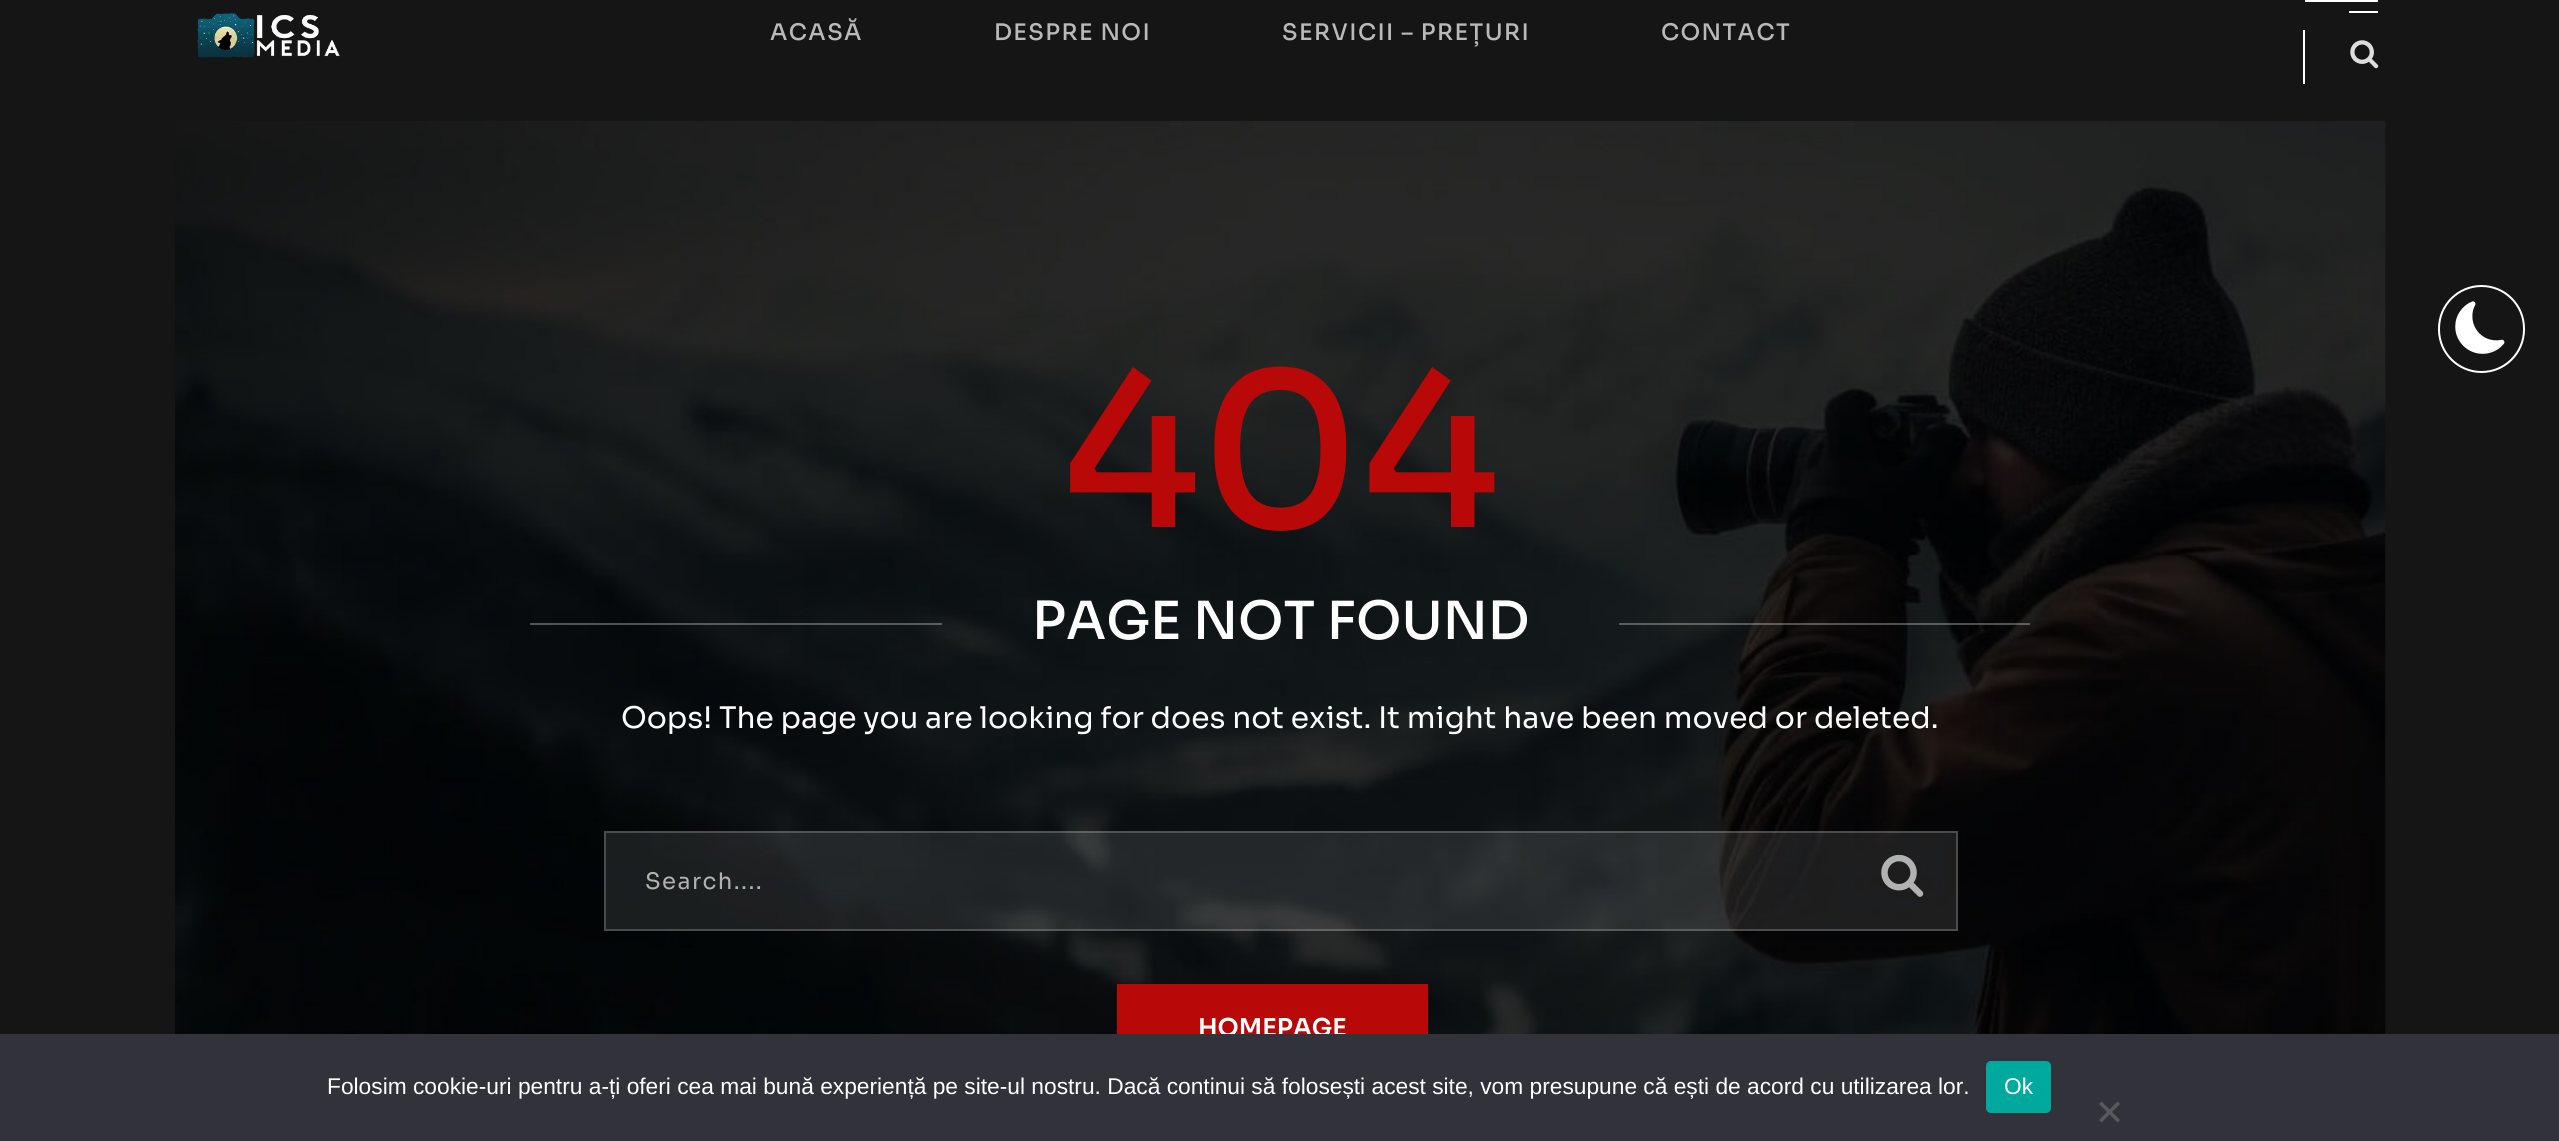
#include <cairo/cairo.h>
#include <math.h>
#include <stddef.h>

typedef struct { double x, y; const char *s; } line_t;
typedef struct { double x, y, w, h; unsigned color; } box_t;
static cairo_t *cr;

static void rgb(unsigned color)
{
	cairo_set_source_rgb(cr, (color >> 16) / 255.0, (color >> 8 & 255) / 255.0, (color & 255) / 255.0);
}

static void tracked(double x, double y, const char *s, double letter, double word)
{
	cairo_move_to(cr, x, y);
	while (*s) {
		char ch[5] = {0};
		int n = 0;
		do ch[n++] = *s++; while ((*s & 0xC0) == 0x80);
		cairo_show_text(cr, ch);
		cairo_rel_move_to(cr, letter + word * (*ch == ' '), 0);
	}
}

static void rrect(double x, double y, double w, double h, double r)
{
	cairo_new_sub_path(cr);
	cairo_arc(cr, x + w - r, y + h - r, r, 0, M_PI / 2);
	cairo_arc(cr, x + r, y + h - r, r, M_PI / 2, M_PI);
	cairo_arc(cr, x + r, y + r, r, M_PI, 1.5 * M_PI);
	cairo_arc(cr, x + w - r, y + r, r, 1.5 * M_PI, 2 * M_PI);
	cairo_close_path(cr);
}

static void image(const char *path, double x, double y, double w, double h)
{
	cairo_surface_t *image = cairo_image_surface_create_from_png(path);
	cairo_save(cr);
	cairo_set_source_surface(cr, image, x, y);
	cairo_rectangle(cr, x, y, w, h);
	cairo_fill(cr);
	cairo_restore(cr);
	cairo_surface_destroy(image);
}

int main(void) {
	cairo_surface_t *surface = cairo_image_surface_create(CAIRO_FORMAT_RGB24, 2559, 1141);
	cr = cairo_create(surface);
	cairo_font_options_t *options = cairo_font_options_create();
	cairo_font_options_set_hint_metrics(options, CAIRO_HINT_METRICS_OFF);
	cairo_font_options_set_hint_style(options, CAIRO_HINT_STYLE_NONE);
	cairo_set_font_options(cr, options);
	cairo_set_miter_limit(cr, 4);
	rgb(0x151515);
	cairo_paint(cr);
	image("img/1.png", 197, 13, 143, 45);
	{
		static const box_t items[] = {
			{2305, 0, 73, 2, 0xffffff},
			{2349, 11, 29, 2, 0xffffff},
			{2303, 30, 2, 54, 0xffffff},
		};
		for (size_t i = 0; i < sizeof items / sizeof *items; i++) {
			rgb(items[i].color);
			cairo_rectangle(cr, items[i].x, items[i].y, items[i].w, items[i].h);
			cairo_fill(cr);
		}
	}
	image("img/2.png", 2350, 40, 29, 29);
	rrect(2439, 286, 85, 86, 42.5);
	cairo_stroke(cr);
	image("img/3.png", 2455, 301, 50, 53);
	image("img/4.png", 175, 121, 2211, 913);
	cairo_set_source_rgba(cr, 1, 1, 1, 0.3);
	cairo_rectangle(cr, 530, 623, 412, 2);
	cairo_fill(cr);
	cairo_rectangle(cr, 1619, 623, 411, 2);
	cairo_fill(cr);
	cairo_set_source_rgba(cr, 1, 1, 1, 0.1);
	cairo_rectangle(cr, 604, 831, 1354, 100);
	cairo_fill(cr);
	cairo_rectangle(cr, 605, 832, 1352, 98);
	cairo_set_source_rgba(cr, 1, 1, 1, 0.2);
	cairo_stroke(cr);
	image("img/5.png", 1881, 854, 43, 43);
	rgb(0xb90808);
	cairo_rectangle(cr, 1117, 984, 311, 50);
	cairo_fill(cr);
	cairo_select_font_face(cr, "Sora Medium", CAIRO_FONT_SLANT_NORMAL, CAIRO_FONT_WEIGHT_NORMAL);
	cairo_set_font_size(cr, 22.75);
	rgb(0xb9b9b9);
	{
		static const line_t items[] = {
			{770, 40, "ACASĂ"},
			{994, 40, "DESPRE NOI"},
			{1282, 40, "SERVICII – PREȚURI"},
			{1661, 40, "CONTACT"},
		};
		for (size_t i = 0; i < sizeof items / sizeof *items; i++) {
			tracked(items[i].x, items[i].y, items[i].s, 1.4, 0);
		}
	}
	cairo_set_font_size(cr, 213.5);
	rgb(0xb90808);
	cairo_move_to(cr, 1061, 527);
	cairo_show_text(cr, "404");
	cairo_set_font_size(cr, 52.5);
	rgb(0xffffff);
	cairo_move_to(cr, 1032, 639);
	cairo_show_text(cr, "PAGE NOT FOUND");
	cairo_select_font_face(cr, "Sora", CAIRO_FONT_SLANT_NORMAL, CAIRO_FONT_WEIGHT_NORMAL);
	cairo_set_font_size(cr, 29.75);
	cairo_move_to(cr, 621, 728);
	cairo_show_text(cr, "Oops! The page you are looking for does not exist. It might have been moved or deleted.");
	cairo_set_font_size(cr, 22.75);
	rgb(0xb2b2b2);
	tracked(645, 889, "Search....", 1.4, 0);
	cairo_select_font_face(cr, "Sora SemiBold", CAIRO_FONT_SLANT_NORMAL, CAIRO_FONT_WEIGHT_NORMAL);
	cairo_set_font_size(cr, 24.5);
	rgb(0xffffff);
	cairo_move_to(cr, 1198, 1036);
	cairo_show_text(cr, "HOMEPAGE");
	rgb(0x32323a);
	cairo_rectangle(cr, 0, 1034, 2559, 107);
	cairo_fill(cr);
	cairo_select_font_face(cr, "Liberation Sans", CAIRO_FONT_SLANT_NORMAL, CAIRO_FONT_WEIGHT_NORMAL);
	cairo_set_font_size(cr, 22.75);
	rgb(0xffffff);
	cairo_move_to(cr, 327, 1094);
	cairo_show_text(cr, "Folosim cookie-uri pentru a-ți oferi cea mai bună experiență pe site-ul nostru. Dacă continui să folosești acest site, vom presupune că ești de acord cu utilizarea lor.");
	rgb(0x00a99d);
	rrect(1986, 1061, 65, 52, 5);
	cairo_fill(cr);
	rgb(0xffffff);
	cairo_move_to(cr, 2004, 1094);
	cairo_show_text(cr, "Ok");
	rgb(0x59595d);
	cairo_new_path(cr);
	cairo_move_to(cr, 2117.5, 1101.5);
	cairo_line_to(cr, 2120, 1104);
	cairo_line_to(cr, 2101.5, 1122.5);
	cairo_line_to(cr, 2099, 1120);
	cairo_close_path(cr);
	cairo_fill(cr);
	cairo_new_path(cr);
	cairo_move_to(cr, 2099, 1104);
	cairo_line_to(cr, 2101.5, 1101.5);
	cairo_line_to(cr, 2120, 1120);
	cairo_line_to(cr, 2117.5, 1122.5);
	cairo_close_path(cr);
	cairo_fill(cr);
	cairo_surface_write_to_png(surface, "page.png");
	cairo_font_options_destroy(options);
	cairo_destroy(cr);
	cairo_surface_destroy(surface);
	return 0;
}
